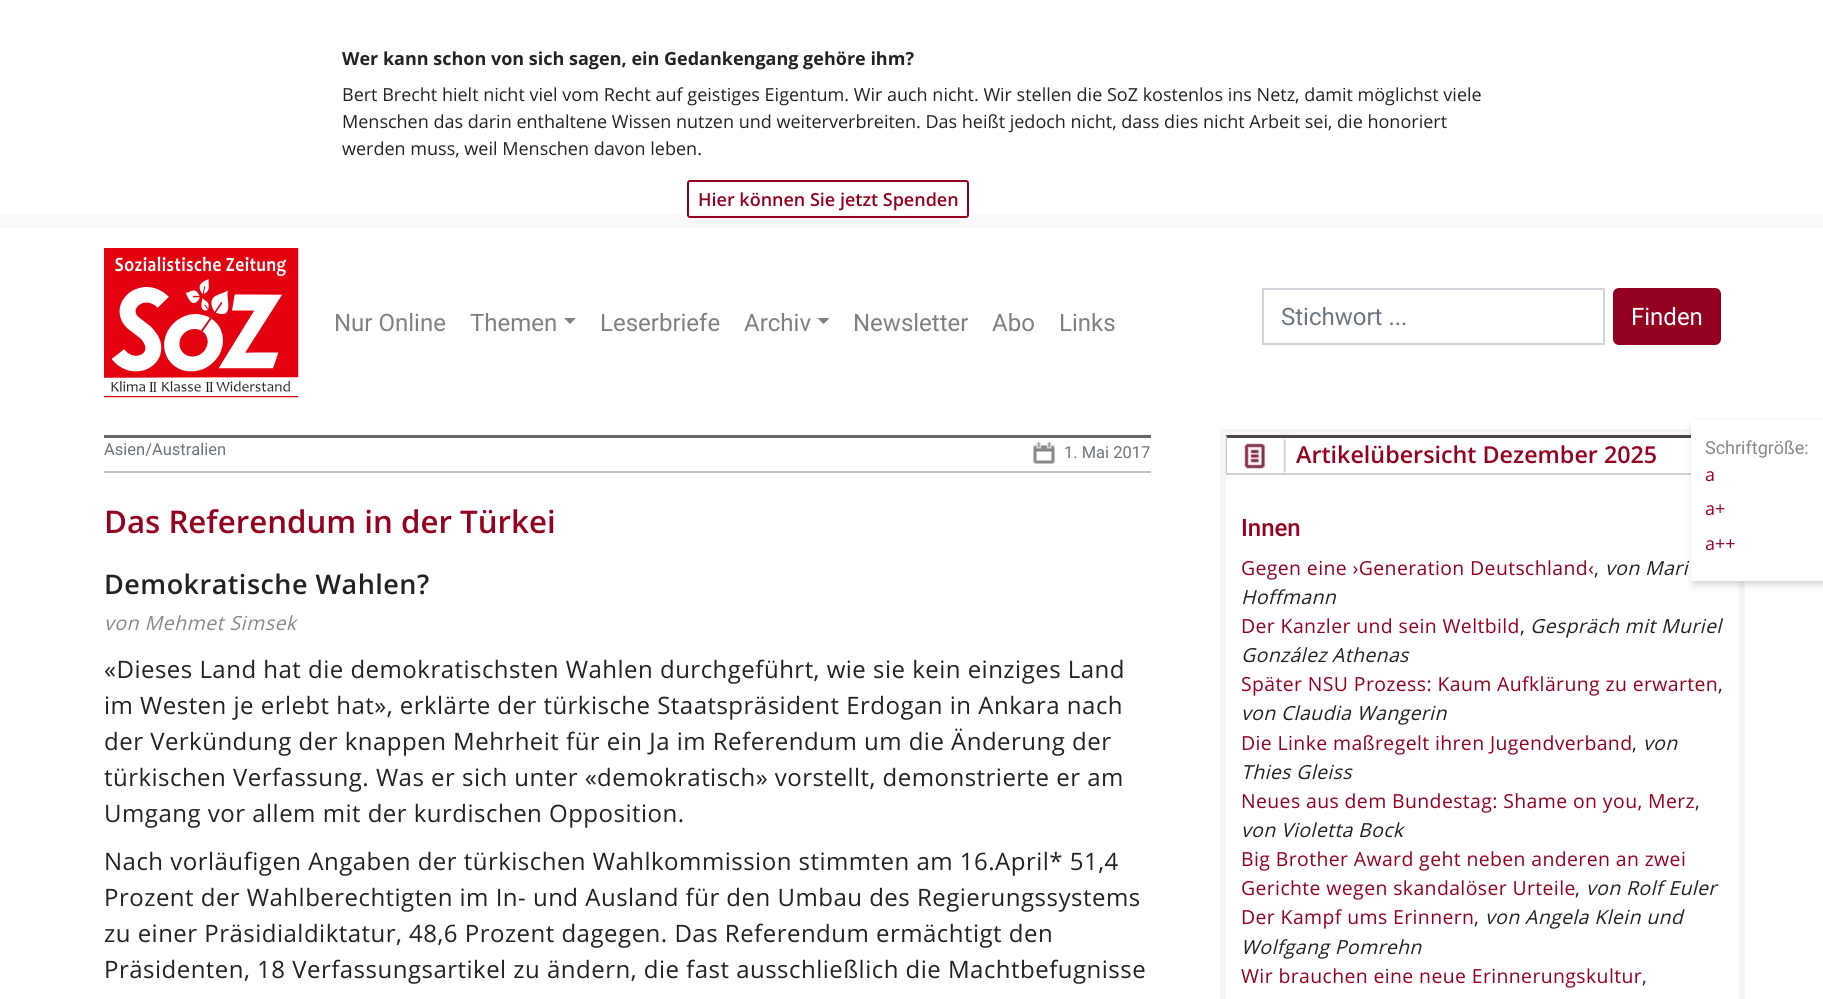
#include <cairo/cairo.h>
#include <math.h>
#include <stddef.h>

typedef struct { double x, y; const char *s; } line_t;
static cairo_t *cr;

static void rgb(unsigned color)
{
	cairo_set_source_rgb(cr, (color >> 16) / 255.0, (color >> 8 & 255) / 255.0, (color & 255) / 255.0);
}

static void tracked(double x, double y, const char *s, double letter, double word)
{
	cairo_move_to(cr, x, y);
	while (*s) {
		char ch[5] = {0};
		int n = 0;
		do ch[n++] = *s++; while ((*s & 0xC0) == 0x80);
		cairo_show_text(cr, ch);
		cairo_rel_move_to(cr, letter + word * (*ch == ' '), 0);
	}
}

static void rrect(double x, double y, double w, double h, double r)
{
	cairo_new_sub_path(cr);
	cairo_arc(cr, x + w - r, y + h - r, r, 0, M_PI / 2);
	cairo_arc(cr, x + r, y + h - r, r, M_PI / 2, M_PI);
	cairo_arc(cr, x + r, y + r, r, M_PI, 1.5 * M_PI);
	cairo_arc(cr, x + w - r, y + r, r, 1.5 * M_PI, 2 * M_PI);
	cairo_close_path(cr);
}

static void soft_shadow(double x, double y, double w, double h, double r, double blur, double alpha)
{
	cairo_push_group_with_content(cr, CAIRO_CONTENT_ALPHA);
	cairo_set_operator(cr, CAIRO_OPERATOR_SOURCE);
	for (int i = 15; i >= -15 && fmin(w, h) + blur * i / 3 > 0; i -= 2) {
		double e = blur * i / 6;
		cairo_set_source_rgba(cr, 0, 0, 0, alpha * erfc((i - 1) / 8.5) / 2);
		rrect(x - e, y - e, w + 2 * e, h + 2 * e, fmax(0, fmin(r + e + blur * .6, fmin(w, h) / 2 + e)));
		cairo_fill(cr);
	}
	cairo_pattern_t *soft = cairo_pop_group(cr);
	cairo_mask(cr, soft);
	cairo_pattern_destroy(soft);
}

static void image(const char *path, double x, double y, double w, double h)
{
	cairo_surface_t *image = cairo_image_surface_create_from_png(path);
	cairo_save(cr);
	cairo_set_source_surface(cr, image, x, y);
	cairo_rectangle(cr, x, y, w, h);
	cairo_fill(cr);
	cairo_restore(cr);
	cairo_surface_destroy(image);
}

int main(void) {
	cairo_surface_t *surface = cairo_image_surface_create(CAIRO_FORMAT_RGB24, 1823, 999);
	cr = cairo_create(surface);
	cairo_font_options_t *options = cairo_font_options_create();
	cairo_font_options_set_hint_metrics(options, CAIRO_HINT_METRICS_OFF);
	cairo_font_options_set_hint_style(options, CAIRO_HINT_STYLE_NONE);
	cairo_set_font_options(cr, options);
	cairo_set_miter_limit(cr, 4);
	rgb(0xffffff);
	cairo_paint(cr);
	image("img/1.png", 0, 214, 1823, 14);
	rrect(688, 181, 280, 36, 2);
	rgb(0x960020);
	cairo_stroke(cr);
	image("img/2.png", 104, 248, 195, 150);
	rgb(0x808080);
	cairo_new_path(cr);
	cairo_move_to(cr, 564, 318);
	cairo_line_to(cr, 576, 318);
	cairo_line_to(cr, 570, 324);
	cairo_close_path(cr);
	cairo_fill(cr);
	cairo_new_path(cr);
	cairo_move_to(cr, 817.5, 318);
	cairo_line_to(cr, 829.5, 318);
	cairo_line_to(cr, 823.5, 324);
	cairo_close_path(cr);
	cairo_fill(cr);
	cairo_rectangle(cr, 1263, 289, 341, 55);
	rgb(0xced4da);
	cairo_stroke(cr);
	rgb(0x960020);
	rrect(1613, 288, 108, 57, 6);
	cairo_fill(cr);
	rgb(0x666666);
	cairo_rectangle(cr, 104, 435, 1047, 3);
	cairo_fill(cr);
	rgb(0xc2c2c2);
	cairo_rectangle(cr, 104, 471, 1047, 2);
	cairo_fill(cr);
	image("img/3.png", 1033, 442, 22, 22);
	cairo_rectangle(cr, 1223, 432, 519, 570);
	rgb(0xf5f5f5);
	cairo_set_line_width(cr, 6);
	cairo_stroke(cr);
	image("img/4.png", 1243, 439, 43, 34);
	rgb(0x4c4545);
	cairo_new_path(cr);
	cairo_move_to(cr, 1226, 435);
	cairo_line_to(cr, 1738, 435);
	cairo_line_to(cr, 1737, 438);
	cairo_line_to(cr, 1227, 438);
	cairo_close_path(cr);
	cairo_fill(cr);
	rgb(0xcecece);
	cairo_rectangle(cr, 1226, 473, 465, 2);
	cairo_fill(cr);
	cairo_new_path(cr);
	cairo_move_to(cr, 1225.5, 474);
	cairo_line_to(cr, 1225.5, 435);
	cairo_line_to(cr, 1227, 438);
	cairo_line_to(cr, 1227, 472.5);
	cairo_close_path(cr);
	cairo_fill(cr);
	rgb(0x000000);
	soft_shadow(1694, 423, 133, 161, 0, 4, 0.2);
	rgb(0xffffff);
	cairo_rectangle(cr, 1691, 420, 132, 161);
	cairo_fill(cr);
	cairo_select_font_face(cr, "Open Sans", CAIRO_FONT_SLANT_NORMAL, CAIRO_FONT_WEIGHT_BOLD);
	cairo_set_font_size(cr, 18);
	rgb(0x222222);
	cairo_move_to(cr, 342, 65);
	cairo_show_text(cr, "Wer kann schon von sich sagen, ein Gedankengang gehöre ihm?");
	cairo_select_font_face(cr, "Open Sans", CAIRO_FONT_SLANT_NORMAL, CAIRO_FONT_WEIGHT_NORMAL);
	{
		static const line_t items[] = {
			{342, 101, "Bert Brecht hielt nicht viel vom Recht auf geistiges Eigentum. Wir auch nicht. Wir stellen die SoZ kostenlos ins Netz, damit möglichst viele"},
			{342, 128, "Menschen das darin enthaltene Wissen nutzen und weiterverbreiten. Das heißt jedoch nicht, dass dies nicht Arbeit sei, die honoriert"},
			{342, 155, "werden muss, weil Menschen davon leben."},
		};
		for (size_t i = 0; i < sizeof items / sizeof *items; i++) {
			cairo_move_to(cr, items[i].x, items[i].y);
			cairo_show_text(cr, items[i].s);
		}
	}
	cairo_select_font_face(cr, "Open Sans SemiBold", CAIRO_FONT_SLANT_NORMAL, CAIRO_FONT_WEIGHT_NORMAL);
	rgb(0x960020);
	cairo_move_to(cr, 698, 206);
	cairo_show_text(cr, "Hier können Sie jetzt Spenden");
	cairo_select_font_face(cr, "Roboto", CAIRO_FONT_SLANT_NORMAL, CAIRO_FONT_WEIGHT_NORMAL);
	cairo_set_font_size(cr, 24);
	rgb(0x808080);
	{
		static const line_t items[] = {
			{334, 331, "Nur Online"},
			{470, 331, "Themen"},
			{600, 331, "Leserbriefe"},
			{744, 331, "Archiv"},
			{853, 331, "Newsletter"},
			{992, 331, "Abo"},
			{1059, 331, "Links"},
		};
		for (size_t i = 0; i < sizeof items / sizeof *items; i++) {
			cairo_move_to(cr, items[i].x, items[i].y);
			cairo_show_text(cr, items[i].s);
		}
	}
	rgb(0x6c757d);
	cairo_move_to(cr, 1281, 325);
	cairo_show_text(cr, "Stichwort ...");
	rgb(0xffffff);
	cairo_move_to(cr, 1631, 325);
	cairo_show_text(cr, "Finden");
	cairo_set_font_size(cr, 16.5);
	rgb(0x6c757d);
	cairo_move_to(cr, 104, 455);
	cairo_show_text(cr, "Asien/Australien");
	cairo_move_to(cr, 1064, 458);
	cairo_show_text(cr, "1. Mai 2017");
	cairo_select_font_face(cr, "Open Sans SemiBold", CAIRO_FONT_SLANT_NORMAL, CAIRO_FONT_WEIGHT_NORMAL);
	cairo_set_font_size(cr, 31.25);
	rgb(0x960020);
	cairo_move_to(cr, 104, 533);
	cairo_show_text(cr, "Das Referendum in der Türkei");
	cairo_set_font_size(cr, 27);
	rgb(0x222222);
	tracked(104, 594, "Demokratische Wahlen?", 0.48, 0);
	cairo_select_font_face(cr, "Open Sans", CAIRO_FONT_SLANT_ITALIC, CAIRO_FONT_WEIGHT_NORMAL);
	cairo_set_font_size(cr, 19.5);
	rgb(0x888888);
	tracked(104, 630, "von Mehmet Simsek", 0.48, 0);
	cairo_select_font_face(cr, "Open Sans", CAIRO_FONT_SLANT_NORMAL, CAIRO_FONT_WEIGHT_NORMAL);
	cairo_set_font_size(cr, 24);
	rgb(0x222222);
	{
		static const line_t items[] = {
			{104, 678, "«Dieses Land hat die demokratischsten Wahlen durchgeführt, wie sie kein einziges Land"},
			{104, 714, "im Westen je erlebt hat», erklärte der türkische Staatspräsident Erdogan in Ankara nach"},
			{104, 750, "der Verkündung der knappen Mehrheit für ein Ja im Referendum um die Änderung der"},
			{104, 786, "türkischen Verfassung. Was er sich unter «demokratisch» vorstellt, demonstrierte er am"},
			{104, 822, "Umgang vor allem mit der kurdischen Opposition."},
			{104, 870, "Nach vorläufigen Angaben der türkischen Wahlkommission stimmten am 16.April* 51,4"},
			{104, 906, "Prozent der Wahlberechtigten im In- und Ausland für den Umbau des Regierungssystems"},
			{104, 942, "zu einer Präsidialdiktatur, 48,6 Prozent dagegen. Das Referendum ermächtigt den"},
			{104, 978, "Präsidenten, 18 Verfassungsartikel zu ändern, die fast ausschließlich die Machtbefugnisse"},
		};
		for (size_t i = 0; i < sizeof items / sizeof *items; i++) {
			tracked(items[i].x, items[i].y, items[i].s, 0.48, 0);
		}
	}
	cairo_select_font_face(cr, "Open Sans SemiBold", CAIRO_FONT_SLANT_NORMAL, CAIRO_FONT_WEIGHT_NORMAL);
	cairo_set_font_size(cr, 23.3);
	rgb(0x960020);
	cairo_move_to(cr, 1296, 463);
	cairo_show_text(cr, "Artikelübersicht Dezember 2025");
	cairo_select_font_face(cr, "Roboto Medium", CAIRO_FONT_SLANT_NORMAL, CAIRO_FONT_WEIGHT_NORMAL);
	cairo_set_font_size(cr, 24);
	cairo_move_to(cr, 1241, 536);
	cairo_show_text(cr, "Innen");
	cairo_select_font_face(cr, "Open Sans", CAIRO_FONT_SLANT_NORMAL, CAIRO_FONT_WEIGHT_NORMAL);
	cairo_set_font_size(cr, 19.4);
	tracked(1241, 575, "Gegen eine ›Generation Deutschland‹", 0.4, 0);
	rgb(0x222222);
	tracked(1594, 575, ",", 0.4, 0);
	cairo_select_font_face(cr, "Open Sans", CAIRO_FONT_SLANT_ITALIC, CAIRO_FONT_WEIGHT_NORMAL);
	tracked(1605, 575, "von Mari", 0.4, 0);
	tracked(1241, 604, "Hoffmann", 0.4, 0);
	cairo_select_font_face(cr, "Open Sans", CAIRO_FONT_SLANT_NORMAL, CAIRO_FONT_WEIGHT_NORMAL);
	rgb(0x960020);
	tracked(1241, 633, "Der Kanzler und sein Weltbild", 0.4, 0);
	rgb(0x222222);
	tracked(1520, 633, ",", 0.4, 0);
	cairo_select_font_face(cr, "Open Sans", CAIRO_FONT_SLANT_ITALIC, CAIRO_FONT_WEIGHT_NORMAL);
	tracked(1530, 633, "Gespräch mit Muriel", 0.4, 0);
	tracked(1241, 662, "González Athenas", 0.4, 0);
	cairo_select_font_face(cr, "Open Sans", CAIRO_FONT_SLANT_NORMAL, CAIRO_FONT_WEIGHT_NORMAL);
	rgb(0x960020);
	tracked(1241, 691, "Später NSU Prozess: Kaum Aufklärung zu erwarten", 0.4, 0);
	rgb(0x222222);
	tracked(1718, 691, ",", 0.4, 0);
	cairo_select_font_face(cr, "Open Sans", CAIRO_FONT_SLANT_ITALIC, CAIRO_FONT_WEIGHT_NORMAL);
	tracked(1241, 720, "von Claudia Wangerin", 0.4, 0);
	cairo_select_font_face(cr, "Open Sans", CAIRO_FONT_SLANT_NORMAL, CAIRO_FONT_WEIGHT_NORMAL);
	rgb(0x960020);
	tracked(1241, 750, "Die Linke maßregelt ihren Jugendverband", 0.4, 0);
	rgb(0x222222);
	tracked(1632, 750, ",", 0.4, 0);
	cairo_select_font_face(cr, "Open Sans", CAIRO_FONT_SLANT_ITALIC, CAIRO_FONT_WEIGHT_NORMAL);
	tracked(1643, 750, "von", 0.4, 0);
	tracked(1241, 779, "Thies Gleiss", 0.4, 0);
	cairo_select_font_face(cr, "Open Sans", CAIRO_FONT_SLANT_NORMAL, CAIRO_FONT_WEIGHT_NORMAL);
	rgb(0x960020);
	tracked(1241, 808, "Neues aus dem Bundestag: Shame on you, Merz", 0.4, 0);
	rgb(0x222222);
	tracked(1695, 808, ",", 0.4, 0);
	cairo_select_font_face(cr, "Open Sans", CAIRO_FONT_SLANT_ITALIC, CAIRO_FONT_WEIGHT_NORMAL);
	tracked(1241, 837, "von Violetta Bock", 0.4, 0);
	cairo_select_font_face(cr, "Open Sans", CAIRO_FONT_SLANT_NORMAL, CAIRO_FONT_WEIGHT_NORMAL);
	rgb(0x960020);
	tracked(1241, 866, "Big Brother Award geht neben anderen an zwei", 0.4, 0);
	tracked(1241, 895, "Gerichte wegen skandalöser Urteile", 0.4, 0);
	rgb(0x222222);
	tracked(1575, 895, ",", 0.4, 0);
	cairo_select_font_face(cr, "Open Sans", CAIRO_FONT_SLANT_ITALIC, CAIRO_FONT_WEIGHT_NORMAL);
	tracked(1586, 895, "von Rolf Euler", 0.4, 0);
	cairo_select_font_face(cr, "Open Sans", CAIRO_FONT_SLANT_NORMAL, CAIRO_FONT_WEIGHT_NORMAL);
	rgb(0x960020);
	tracked(1241, 924, "Der Kampf ums Erinnern", 0.4, 0);
	rgb(0x222222);
	tracked(1474, 924, ",", 0.4, 0);
	cairo_select_font_face(cr, "Open Sans", CAIRO_FONT_SLANT_ITALIC, CAIRO_FONT_WEIGHT_NORMAL);
	tracked(1485, 924, "von Angela Klein und", 0.4, 0);
	tracked(1241, 954, "Wolfgang Pomrehn", 0.4, 0);
	cairo_select_font_face(cr, "Open Sans", CAIRO_FONT_SLANT_NORMAL, CAIRO_FONT_WEIGHT_NORMAL);
	rgb(0x960020);
	tracked(1241, 983, "Wir brauchen eine neue Erinnerungskultur", 0.4, 0);
	rgb(0x222222);
	tracked(1642, 983, ",", 0.4, 0);
	cairo_select_font_face(cr, "Roboto", CAIRO_FONT_SLANT_NORMAL, CAIRO_FONT_WEIGHT_NORMAL);
	cairo_set_font_size(cr, 18);
	rgb(0x888888);
	cairo_move_to(cr, 1705, 454);
	cairo_show_text(cr, "Schriftgröße:");
	cairo_select_font_face(cr, "Open Sans", CAIRO_FONT_SLANT_NORMAL, CAIRO_FONT_WEIGHT_NORMAL);
	rgb(0x960020);
	{
		static const line_t items[] = {
			{1705, 481, "a"},
			{1705, 515, "a+"},
			{1705, 550, "a++"},
		};
		for (size_t i = 0; i < sizeof items / sizeof *items; i++) {
			cairo_move_to(cr, items[i].x, items[i].y);
			cairo_show_text(cr, items[i].s);
		}
	}
	cairo_surface_write_to_png(surface, "page.png");
	cairo_font_options_destroy(options);
	cairo_destroy(cr);
	cairo_surface_destroy(surface);
	return 0;
}
